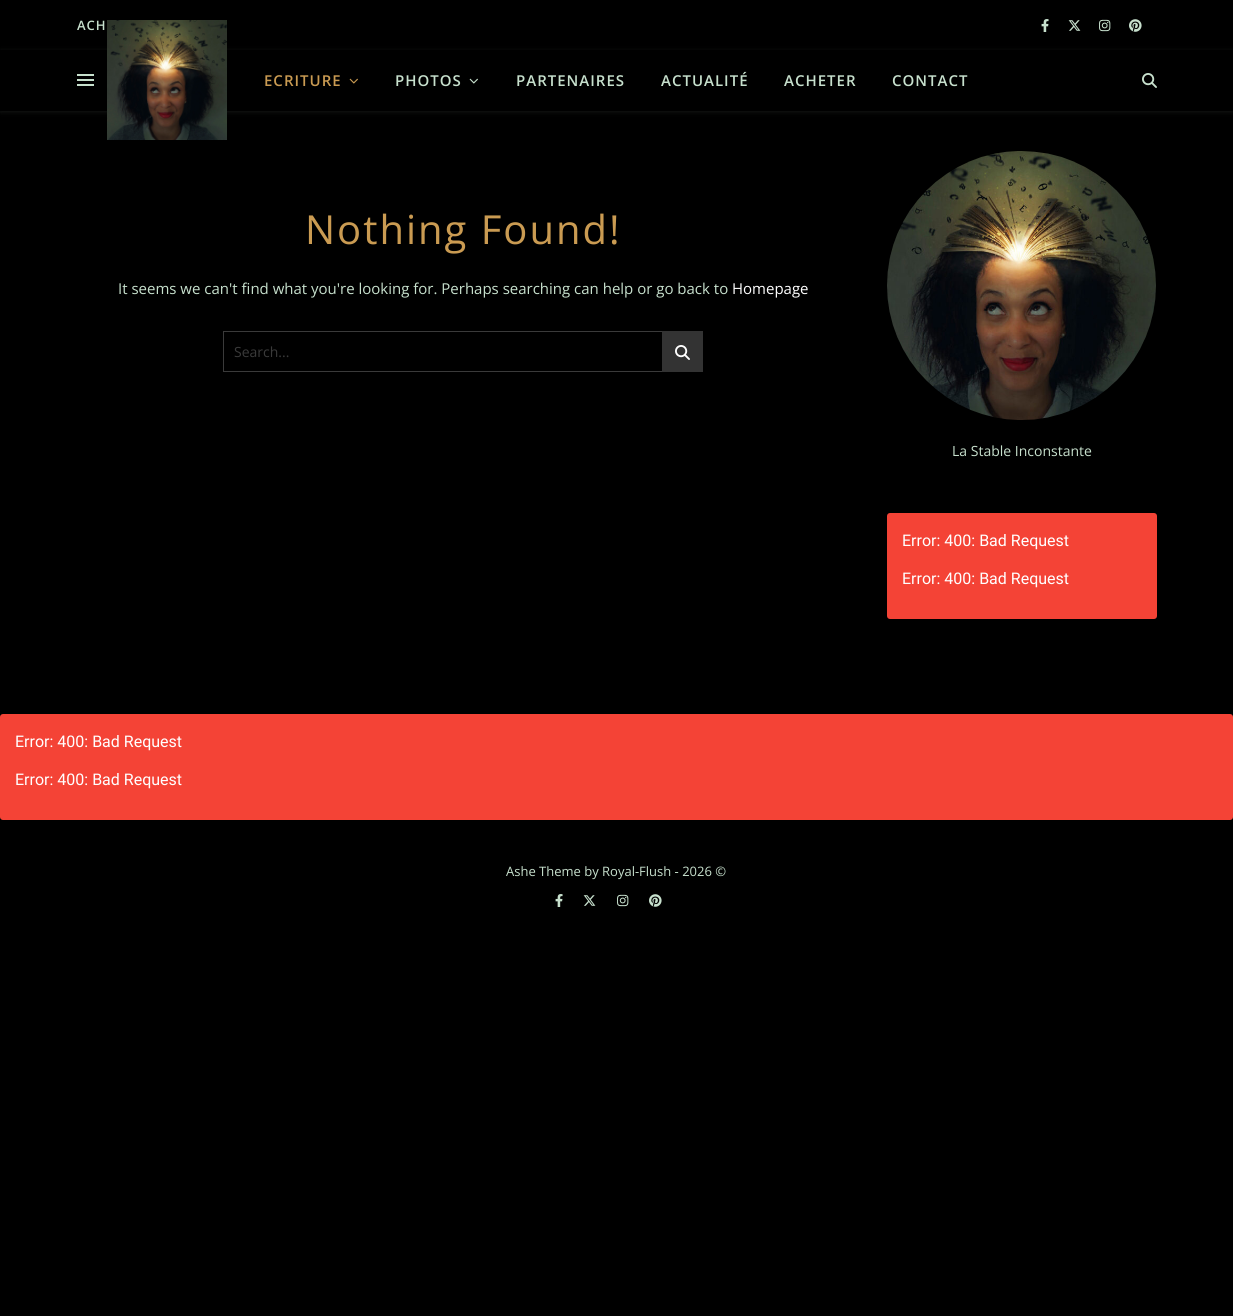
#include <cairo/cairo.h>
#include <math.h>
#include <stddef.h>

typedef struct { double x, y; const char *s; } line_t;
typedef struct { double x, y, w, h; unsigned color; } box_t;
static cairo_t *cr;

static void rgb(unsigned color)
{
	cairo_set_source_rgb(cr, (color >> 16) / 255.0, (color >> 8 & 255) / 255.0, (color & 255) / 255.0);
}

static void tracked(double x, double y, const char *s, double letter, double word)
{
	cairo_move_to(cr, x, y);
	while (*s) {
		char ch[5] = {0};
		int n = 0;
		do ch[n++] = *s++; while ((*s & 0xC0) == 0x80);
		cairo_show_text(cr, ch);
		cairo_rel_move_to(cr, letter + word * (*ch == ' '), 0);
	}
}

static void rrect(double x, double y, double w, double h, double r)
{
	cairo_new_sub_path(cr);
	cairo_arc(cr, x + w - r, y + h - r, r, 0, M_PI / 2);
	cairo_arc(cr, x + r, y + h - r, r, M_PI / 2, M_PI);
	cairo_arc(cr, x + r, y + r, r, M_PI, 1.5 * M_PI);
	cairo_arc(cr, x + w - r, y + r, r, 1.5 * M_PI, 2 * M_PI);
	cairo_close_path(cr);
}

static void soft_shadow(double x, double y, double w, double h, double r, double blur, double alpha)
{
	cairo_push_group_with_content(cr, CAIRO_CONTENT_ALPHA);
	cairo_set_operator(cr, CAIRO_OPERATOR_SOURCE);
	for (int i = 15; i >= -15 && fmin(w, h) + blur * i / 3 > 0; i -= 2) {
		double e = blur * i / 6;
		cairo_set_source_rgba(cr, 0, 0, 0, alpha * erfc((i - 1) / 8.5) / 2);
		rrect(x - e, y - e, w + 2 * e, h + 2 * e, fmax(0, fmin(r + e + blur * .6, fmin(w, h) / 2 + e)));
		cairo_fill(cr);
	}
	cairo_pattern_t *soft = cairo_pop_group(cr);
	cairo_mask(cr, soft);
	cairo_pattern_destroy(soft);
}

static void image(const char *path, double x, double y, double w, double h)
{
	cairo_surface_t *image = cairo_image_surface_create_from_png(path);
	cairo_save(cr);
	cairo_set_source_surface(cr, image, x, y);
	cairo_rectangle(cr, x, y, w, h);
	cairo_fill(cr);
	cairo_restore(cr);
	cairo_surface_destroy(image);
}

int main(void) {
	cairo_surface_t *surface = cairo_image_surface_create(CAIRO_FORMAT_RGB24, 1233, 1316);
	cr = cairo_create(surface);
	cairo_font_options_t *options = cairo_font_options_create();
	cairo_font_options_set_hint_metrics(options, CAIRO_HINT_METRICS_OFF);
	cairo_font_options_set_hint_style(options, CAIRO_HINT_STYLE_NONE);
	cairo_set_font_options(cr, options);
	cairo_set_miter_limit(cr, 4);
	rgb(0x000000);
	cairo_paint(cr);
	image("img/1.png", 1041, 19, 8, 13);
	image("img/2.png", 1068, 20, 13, 11);
	image("img/3.png", 1099, 19, 12, 13);
	image("img/4.png", 1129, 19, 13, 13);
	cairo_save(cr);
	cairo_set_fill_rule(cr, CAIRO_FILL_RULE_EVEN_ODD);
	cairo_new_path(cr);
	cairo_move_to(cr, 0, 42);
	cairo_line_to(cr, 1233, 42);
	cairo_line_to(cr, 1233, 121);
	cairo_line_to(cr, 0, 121);
	cairo_close_path(cr);
	cairo_move_to(cr, 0, 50);
	cairo_line_to(cr, 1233, 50);
	cairo_line_to(cr, 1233, 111);
	cairo_line_to(cr, 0, 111);
	cairo_close_path(cr);
	cairo_clip(cr);
	rgb(0xc7e0cd);
	soft_shadow(0, 51, 1233, 61, 0, 2.5, 0.1);
	cairo_restore(cr);
	{
		static const box_t items[] = {
			{77, 74, 17, 2, 0xc7e0cd},
			{77, 79, 17, 2, 0xc7e0cd},
			{77, 84, 17, 2, 0xc7e0cd},
		};
		for (size_t i = 0; i < sizeof items / sizeof *items; i++) {
			rgb(items[i].color);
			cairo_rectangle(cr, items[i].x, items[i].y, items[i].w, items[i].h);
			cairo_fill(cr);
		}
	}
	image("img/5.png", 107, 20, 120, 120);
	image("img/6.png", 349, 78, 9, 6);
	image("img/7.png", 469, 78, 9, 6);
	image("img/8.png", 1142, 73, 15, 15);
	cairo_rectangle(cr, 223.5, 331.5, 479, 40);
	rgb(0x3a3a3a);
	cairo_set_line_width(cr, 1);
	cairo_stroke(cr);
	rgb(0x333333);
	cairo_rectangle(cr, 662, 331, 41, 41);
	cairo_fill(cr);
	image("img/9.png", 675, 345, 15, 15);
	image("img/10.png", 887, 151, 269, 269);
	rgb(0xf44336);
	rrect(887, 513, 270, 106, 3);
	cairo_fill(cr);
	rrect(0, 714, 1233, 106, 3);
	cairo_fill(cr);
	image("img/1.png", 555, 894, 8, 13);
	image("img/2.png", 583, 895, 13, 11);
	image("img/3.png", 617, 894, 12, 13);
	image("img/4.png", 649, 894, 13, 13);
	cairo_select_font_face(cr, "Open Sans SemiBold", CAIRO_FONT_SLANT_NORMAL, CAIRO_FONT_WEIGHT_NORMAL);
	cairo_set_font_size(cr, 13);
	rgb(0xc7e0cd);
	tracked(77, 30, "ACH", 1, 0);
	cairo_set_font_size(cr, 15);
	rgb(0xca9b52);
	tracked(264, 86, "ECRITURE", 1, 0);
	rgb(0xc7e0cd);
	{
		static const line_t items[] = {
			{395, 86, "PHOTOS"},
			{516, 86, "PARTENAIRES"},
			{661, 86, "ACTUALITÉ"},
			{784, 86, "ACHETER"},
			{892, 86, "CONTACT"},
		};
		for (size_t i = 0; i < sizeof items / sizeof *items; i++) {
			tracked(items[i].x, items[i].y, items[i].s, 1, 0);
		}
	}
	cairo_select_font_face(cr, "Open Sans", CAIRO_FONT_SLANT_NORMAL, CAIRO_FONT_WEIGHT_NORMAL);
	cairo_set_font_size(cr, 40);
	rgb(0xca9b52);
	tracked(305, 244, "Nothing Found!", 2, 0);
	cairo_set_font_size(cr, 15);
	rgb(0xc7e0cd);
	cairo_move_to(cr, 118, 294);
	cairo_show_text(cr, "It seems we can't find what you're looking for. Perhaps searching can help or go back to");
	rgb(0xffffff);
	cairo_move_to(cr, 732, 294);
	cairo_show_text(cr, "Homepage");
	cairo_set_font_size(cr, 14);
	rgb(0x3a3a3a);
	cairo_move_to(cr, 234, 357);
	cairo_show_text(cr, "Search...");
	rgb(0xc7e0cd);
	cairo_move_to(cr, 952, 456);
	cairo_show_text(cr, "La Stable Inconstante");
	cairo_select_font_face(cr, "Roboto", CAIRO_FONT_SLANT_NORMAL, CAIRO_FONT_WEIGHT_NORMAL);
	cairo_set_font_size(cr, 16);
	rgb(0xffffff);
	{
		static const line_t items[] = {
			{902, 546, "Error: 400: Bad Request"},
			{902, 584, "Error: 400: Bad Request"},
			{15, 747, "Error: 400: Bad Request"},
			{15, 785, "Error: 400: Bad Request"},
		};
		for (size_t i = 0; i < sizeof items / sizeof *items; i++) {
			cairo_move_to(cr, items[i].x, items[i].y);
			cairo_show_text(cr, items[i].s);
		}
	}
	cairo_select_font_face(cr, "Open Sans", CAIRO_FONT_SLANT_NORMAL, CAIRO_FONT_WEIGHT_NORMAL);
	cairo_set_font_size(cr, 13);
	rgb(0xc7e0cd);
	cairo_move_to(cr, 506, 876);
	cairo_show_text(cr, "Ashe Theme by Royal-Flush - 2026 ©");
	cairo_surface_write_to_png(surface, "page.png");
	cairo_font_options_destroy(options);
	cairo_destroy(cr);
	cairo_surface_destroy(surface);
	return 0;
}
